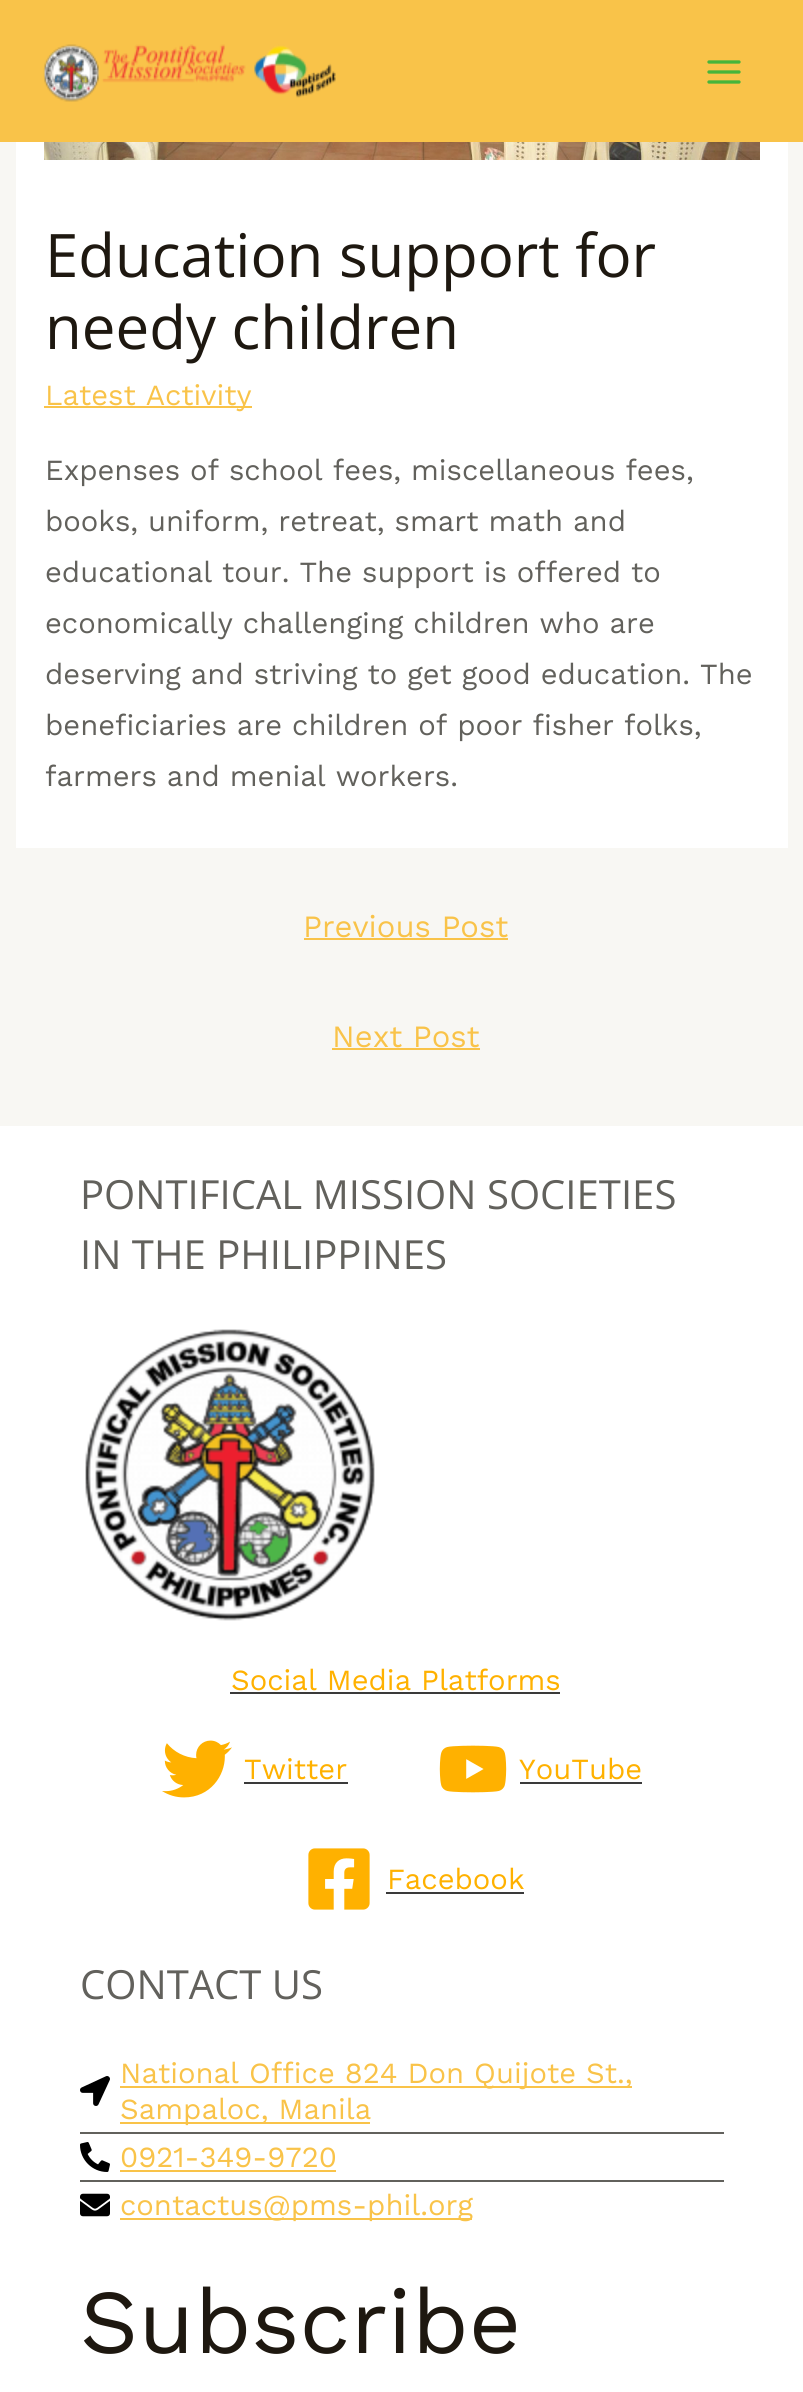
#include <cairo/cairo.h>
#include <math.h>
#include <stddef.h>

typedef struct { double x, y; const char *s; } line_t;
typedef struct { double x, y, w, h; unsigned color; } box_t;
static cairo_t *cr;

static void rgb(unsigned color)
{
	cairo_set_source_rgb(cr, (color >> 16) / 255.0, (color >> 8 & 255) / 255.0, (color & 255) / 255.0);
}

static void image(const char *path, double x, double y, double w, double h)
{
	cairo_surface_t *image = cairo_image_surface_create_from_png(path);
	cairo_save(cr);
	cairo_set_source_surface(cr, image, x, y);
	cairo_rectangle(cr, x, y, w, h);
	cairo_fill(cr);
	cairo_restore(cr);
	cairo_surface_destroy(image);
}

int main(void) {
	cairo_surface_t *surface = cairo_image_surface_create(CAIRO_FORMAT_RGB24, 803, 2392);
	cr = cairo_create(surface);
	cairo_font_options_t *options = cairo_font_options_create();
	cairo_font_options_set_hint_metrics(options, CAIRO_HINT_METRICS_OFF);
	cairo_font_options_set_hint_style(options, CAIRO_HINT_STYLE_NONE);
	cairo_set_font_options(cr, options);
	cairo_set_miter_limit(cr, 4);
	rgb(0xf8f7f3);
	cairo_paint(cr);
	rgb(0xf9c349);
	cairo_rectangle(cr, 0, 0, 803, 142);
	cairo_fill(cr);
	image("img/1.png", 43, 44, 293, 58);
	image("img/2.png", 707, 60, 34, 24);
	rgb(0xffffff);
	cairo_rectangle(cr, 16, 142, 772, 706);
	cairo_fill(cr);
	image("img/3.png", 44, 142, 716, 18);
	{
		static const box_t items[] = {
			{44, 406, 208, 2, 0xf9c349},
			{304, 938, 204, 2, 0xf9c349},
			{332, 1048, 148, 2, 0xf9c349},
			{0, 1126, 803, 1266, 0xffffff},
		};
		for (size_t i = 0; i < sizeof items / sizeof *items; i++) {
			rgb(items[i].color);
			cairo_rectangle(cr, items[i].x, items[i].y, items[i].w, items[i].h);
			cairo_fill(cr);
		}
	}
	image("img/4.png", 85, 1329, 290, 292);
	rgb(0x3a3a3a);
	cairo_rectangle(cr, 230, 1692, 330, 2);
	cairo_fill(cr);
	image("img/5.png", 162, 1740, 70, 58);
	cairo_rectangle(cr, 244, 1782, 104, 2);
	cairo_fill(cr);
	image("img/6.png", 439, 1745, 68, 48);
	cairo_rectangle(cr, 520, 1782, 122, 2);
	cairo_fill(cr);
	image("img/7.png", 308, 1848, 62, 62);
	cairo_rectangle(cr, 386, 1892, 138, 2);
	cairo_fill(cr);
	rgb(0x62615c);
	cairo_rectangle(cr, 80, 2132, 644, 2);
	cairo_fill(cr);
	image("img/8.png", 80, 2076, 30, 30);
	{
		static const box_t items[] = {
			{120, 2086, 512, 2, 0xf9c349},
			{120, 2122, 250, 2, 0xf9c349},
			{80, 2180, 644, 2, 0x62615c},
		};
		for (size_t i = 0; i < sizeof items / sizeof *items; i++) {
			rgb(items[i].color);
			cairo_rectangle(cr, items[i].x, items[i].y, items[i].w, items[i].h);
			cairo_fill(cr);
		}
	}
	image("img/9.png", 80, 2142, 30, 30);
	rgb(0xf9c349);
	cairo_rectangle(cr, 120, 2170, 216, 2);
	cairo_fill(cr);
	image("img/10.png", 80, 2193, 30, 24);
	cairo_rectangle(cr, 120, 2218, 352, 2);
	cairo_fill(cr);
	cairo_select_font_face(cr, "Open Sans", CAIRO_FONT_SLANT_NORMAL, CAIRO_FONT_WEIGHT_NORMAL);
	cairo_set_font_size(cr, 60);
	rgb(0x1e1810);
	cairo_move_to(cr, 45, 277);
	cairo_show_text(cr, "Education support for");
	cairo_move_to(cr, 45, 349);
	cairo_show_text(cr, "needy children");
	cairo_select_font_face(cr, "Work Sans", CAIRO_FONT_SLANT_NORMAL, CAIRO_FONT_WEIGHT_NORMAL);
	cairo_set_font_size(cr, 29.2);
	rgb(0xf9c349);
	cairo_move_to(cr, 45, 405);
	cairo_show_text(cr, "Latest Activity");
	rgb(0x62615c);
	{
		static const line_t items[] = {
			{45, 480, "Expenses of school fees, miscellaneous fees,"},
			{45, 531, "books, uniform, retreat, smart math and"},
			{45, 582, "educational tour. The support is offered to"},
			{45, 633, "economically challenging children who are"},
			{45, 684, "deserving and striving to get good education. The"},
			{45, 735, "beneficiaries are children of poor fisher folks,"},
			{45, 786, "farmers and menial workers."},
		};
		for (size_t i = 0; i < sizeof items / sizeof *items; i++) {
			cairo_move_to(cr, items[i].x, items[i].y);
			cairo_show_text(cr, items[i].s);
		}
	}
	cairo_set_font_size(cr, 31);
	rgb(0xf9c349);
	cairo_move_to(cr, 303, 937);
	cairo_show_text(cr, "Previous Post");
	cairo_move_to(cr, 332, 1047);
	cairo_show_text(cr, "Next Post");
	cairo_select_font_face(cr, "Open Sans", CAIRO_FONT_SLANT_NORMAL, CAIRO_FONT_WEIGHT_NORMAL);
	cairo_set_font_size(cr, 40.1);
	rgb(0x62615c);
	cairo_move_to(cr, 80, 1209);
	cairo_show_text(cr, "PONTIFICAL MISSION SOCIETIES");
	cairo_move_to(cr, 80, 1269);
	cairo_show_text(cr, "IN THE PHILIPPINES");
	cairo_select_font_face(cr, "Work Sans", CAIRO_FONT_SLANT_NORMAL, CAIRO_FONT_WEIGHT_NORMAL);
	cairo_set_font_size(cr, 29.2);
	rgb(0xffb100);
	{
		static const line_t items[] = {
			{231, 1690, "Social Media Platforms"},
			{244, 1779, "Twitter"},
			{519, 1779, "YouTube"},
			{387, 1889, "Facebook"},
		};
		for (size_t i = 0; i < sizeof items / sizeof *items; i++) {
			cairo_move_to(cr, items[i].x, items[i].y);
			cairo_show_text(cr, items[i].s);
		}
	}
	cairo_select_font_face(cr, "Open Sans", CAIRO_FONT_SLANT_NORMAL, CAIRO_FONT_WEIGHT_NORMAL);
	cairo_set_font_size(cr, 40.1);
	rgb(0x62615c);
	cairo_move_to(cr, 80, 1999);
	cairo_show_text(cr, "CONTACT US");
	cairo_select_font_face(cr, "Work Sans", CAIRO_FONT_SLANT_NORMAL, CAIRO_FONT_WEIGHT_NORMAL);
	cairo_set_font_size(cr, 29.2);
	rgb(0xf9c349);
	{
		static const line_t items[] = {
			{120, 2083, "National Office 824 Don Quijote St.,"},
			{120, 2119, "Sampaloc, Manila"},
			{120, 2167, "0921-349-9720"},
			{120, 2215, "contactus@pms-phil.org"},
		};
		for (size_t i = 0; i < sizeof items / sizeof *items; i++) {
			cairo_move_to(cr, items[i].x, items[i].y);
			cairo_show_text(cr, items[i].s);
		}
	}
	cairo_set_font_size(cr, 91);
	rgb(0x1e1810);
	cairo_move_to(cr, 80, 2353);
	cairo_show_text(cr, "Subscribe");
	cairo_surface_write_to_png(surface, "page.png");
	cairo_font_options_destroy(options);
	cairo_destroy(cr);
	cairo_surface_destroy(surface);
	return 0;
}
